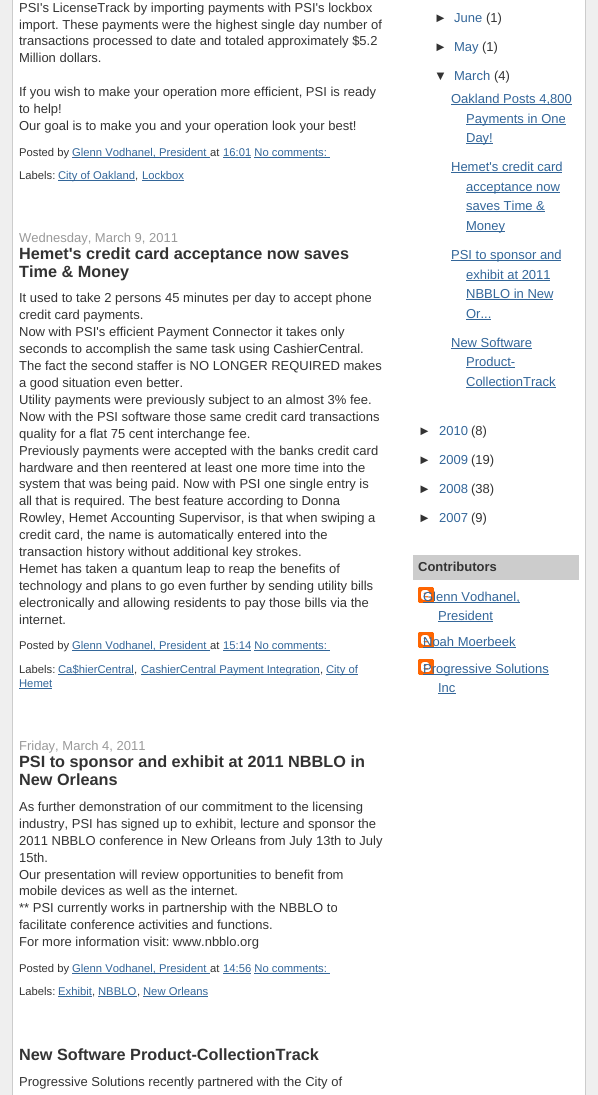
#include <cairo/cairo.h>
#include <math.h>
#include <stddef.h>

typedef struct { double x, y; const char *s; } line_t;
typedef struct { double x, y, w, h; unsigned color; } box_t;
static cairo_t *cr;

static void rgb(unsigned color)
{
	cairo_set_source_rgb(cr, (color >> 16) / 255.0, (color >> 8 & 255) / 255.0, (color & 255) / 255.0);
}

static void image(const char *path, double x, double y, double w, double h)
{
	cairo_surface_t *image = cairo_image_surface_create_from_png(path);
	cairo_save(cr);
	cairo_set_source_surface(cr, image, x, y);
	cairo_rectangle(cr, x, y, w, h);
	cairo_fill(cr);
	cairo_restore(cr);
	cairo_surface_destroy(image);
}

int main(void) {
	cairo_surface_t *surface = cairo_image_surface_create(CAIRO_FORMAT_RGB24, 598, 1095);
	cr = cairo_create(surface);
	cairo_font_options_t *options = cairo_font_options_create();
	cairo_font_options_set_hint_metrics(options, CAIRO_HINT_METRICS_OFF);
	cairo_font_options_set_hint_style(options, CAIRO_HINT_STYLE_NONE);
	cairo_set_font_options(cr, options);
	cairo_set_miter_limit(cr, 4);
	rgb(0xefefef);
	cairo_paint(cr);
	{
		static const box_t items[] = {
			{13, 0, 572, 1095, 0xffffff},
			{585, 0, 1, 1095, 0xcccccc},
			{12, 0, 1, 1095, 0xcccccc},
			{72, 157, 135, 1, 0x336699},
			{207, 157, 3, 1, 0x336699},
			{223, 157, 28, 1, 0x336699},
			{254, 157, 76, 1, 0x336699},
			{58, 180, 77, 1, 0x336699},
			{142, 180, 42, 1, 0x336699},
			{72, 650, 135, 1, 0x336699},
			{207, 650, 3, 1, 0x336699},
			{223, 650, 28, 1, 0x336699},
			{254, 650, 76, 1, 0x336699},
			{58, 674, 76, 1, 0x336699},
			{141, 674, 179, 1, 0x336699},
			{326, 674, 32, 1, 0x336699},
			{19, 688, 33, 1, 0x336699},
			{72, 973, 135, 1, 0x336699},
			{207, 973, 3, 1, 0x336699},
			{223, 973, 28, 1, 0x336699},
			{254, 973, 76, 1, 0x336699},
			{58, 996, 34, 1, 0x336699},
			{98, 996, 39, 1, 0x336699},
			{143, 996, 65, 1, 0x336699},
			{451, 104, 121, 1, 0x336699},
			{466, 124, 100, 1, 0x336699},
			{466, 143, 27, 1, 0x336699},
			{451, 172, 111, 1, 0x336699},
			{466, 192, 94, 1, 0x336699},
			{466, 211, 79, 1, 0x336699},
			{466, 231, 39, 1, 0x336699},
			{451, 260, 110, 1, 0x336699},
			{466, 280, 84, 1, 0x336699},
			{466, 299, 87, 1, 0x336699},
			{466, 319, 25, 1, 0x336699},
			{451, 348, 81, 1, 0x336699},
			{466, 367, 49, 1, 0x336699},
			{466, 387, 90, 1, 0x336699},
			{413, 555, 166, 25, 0xcccccc},
		};
		for (size_t i = 0; i < sizeof items / sizeof *items; i++) {
			rgb(items[i].color);
			cairo_rectangle(cr, items[i].x, items[i].y, items[i].w, items[i].h);
			cairo_fill(cr);
		}
	}
	image("img/1.png", 418, 587, 16, 16);
	rgb(0x336699);
	cairo_rectangle(cr, 423, 602, 97, 1);
	cairo_fill(cr);
	cairo_rectangle(cr, 438, 621, 55, 1);
	cairo_fill(cr);
	image("img/1.png", 418, 632, 16, 16);
	cairo_rectangle(cr, 423, 647, 93, 1);
	cairo_fill(cr);
	image("img/1.png", 418, 659, 16, 16);
	cairo_rectangle(cr, 423, 674, 126, 1);
	cairo_fill(cr);
	cairo_rectangle(cr, 438, 693, 18, 1);
	cairo_fill(cr);
	cairo_select_font_face(cr, "Liberation Sans", CAIRO_FONT_SLANT_NORMAL, CAIRO_FONT_WEIGHT_NORMAL);
	cairo_set_font_size(cr, 13);
	rgb(0x333333);
	{
		static const line_t items[] = {
			{19, 12, "PSI's LicenseTrack by importing payments with PSI's lockbox"},
			{19, 29, "import. These payments were the highest single day number of"},
			{19, 45, "transactions processed to date and totaled approximately $5.2"},
			{19, 62, "Million dollars."},
			{19, 96, "If you wish to make your operation more efficient, PSI is ready"},
			{19, 113, "to help!"},
			{19, 130, "Our goal is to make you and your operation look your best!"},
		};
		for (size_t i = 0; i < sizeof items / sizeof *items; i++) {
			cairo_move_to(cr, items[i].x, items[i].y);
			cairo_show_text(cr, items[i].s);
		}
	}
	cairo_set_font_size(cr, 11.25);
	cairo_move_to(cr, 19, 156);
	cairo_show_text(cr, "Posted by");
	rgb(0x336699);
	cairo_move_to(cr, 72, 156);
	cairo_show_text(cr, "Glenn Vodhanel, President");
	rgb(0x333333);
	cairo_move_to(cr, 210, 156);
	cairo_show_text(cr, "at");
	rgb(0x336699);
	cairo_move_to(cr, 223, 156);
	cairo_show_text(cr, "16:01 No comments:");
	rgb(0x333333);
	cairo_move_to(cr, 19, 179);
	cairo_show_text(cr, "Labels:");
	rgb(0x336699);
	cairo_move_to(cr, 58, 179);
	cairo_show_text(cr, "City of Oakland");
	rgb(0x333333);
	cairo_move_to(cr, 135, 179);
	cairo_show_text(cr, ",");
	rgb(0x336699);
	cairo_move_to(cr, 142, 179);
	cairo_show_text(cr, "Lockbox");
	cairo_set_font_size(cr, 13);
	rgb(0x999999);
	cairo_move_to(cr, 19, 242);
	cairo_show_text(cr, "Wednesday, March 9, 2011");
	cairo_select_font_face(cr, "Liberation Sans", CAIRO_FONT_SLANT_NORMAL, CAIRO_FONT_WEIGHT_BOLD);
	cairo_set_font_size(cr, 16.25);
	rgb(0x333333);
	cairo_move_to(cr, 19, 259);
	cairo_show_text(cr, "Hemet's credit card acceptance now saves");
	cairo_move_to(cr, 19, 277);
	cairo_show_text(cr, "Time & Money");
	cairo_select_font_face(cr, "Liberation Sans", CAIRO_FONT_SLANT_NORMAL, CAIRO_FONT_WEIGHT_NORMAL);
	cairo_set_font_size(cr, 13);
	{
		static const line_t items[] = {
			{19, 302, "It used to take 2 persons 45 minutes per day to accept phone"},
			{19, 319, "credit card payments."},
			{19, 336, "Now with PSI's efficient Payment Connector it takes only"},
			{19, 353, "seconds to accomplish the same task using CashierCentral."},
			{19, 370, "The fact the second staffer is NO LONGER REQUIRED makes"},
			{19, 387, "a good situation even better."},
			{19, 404, "Utility payments were previously subject to an almost 3% fee."},
			{19, 421, "Now with the PSI software those same credit card transactions"},
			{19, 438, "quality for a flat 75 cent interchange fee."},
			{19, 455, "Previously payments were accepted with the banks credit card"},
			{19, 472, "hardware and then reentered at least one more time into the"},
			{19, 488, "system that was being paid. Now with PSI one single entry is"},
			{19, 505, "all that is required. The best feature according to Donna"},
			{19, 522, "Rowley, Hemet Accounting Supervisor, is that when swiping a"},
			{19, 539, "credit card, the name is automatically entered into the"},
			{19, 556, "transaction history without additional key strokes."},
			{19, 573, "Hemet has taken a quantum leap to reap the benefits of"},
			{19, 590, "technology and plans to go even further by sending utility bills"},
			{19, 607, "electronically and allowing residents to pay those bills via the"},
			{19, 624, "internet."},
		};
		for (size_t i = 0; i < sizeof items / sizeof *items; i++) {
			cairo_move_to(cr, items[i].x, items[i].y);
			cairo_show_text(cr, items[i].s);
		}
	}
	cairo_set_font_size(cr, 11.25);
	cairo_move_to(cr, 19, 649);
	cairo_show_text(cr, "Posted by");
	rgb(0x336699);
	cairo_move_to(cr, 72, 649);
	cairo_show_text(cr, "Glenn Vodhanel, President");
	rgb(0x333333);
	cairo_move_to(cr, 210, 649);
	cairo_show_text(cr, "at");
	rgb(0x336699);
	cairo_move_to(cr, 223, 649);
	cairo_show_text(cr, "15:14 No comments:");
	rgb(0x333333);
	cairo_move_to(cr, 19, 673);
	cairo_show_text(cr, "Labels:");
	rgb(0x336699);
	cairo_move_to(cr, 58, 673);
	cairo_show_text(cr, "Ca$hierCentral");
	rgb(0x333333);
	cairo_move_to(cr, 134, 673);
	cairo_show_text(cr, ",");
	rgb(0x336699);
	cairo_move_to(cr, 141, 673);
	cairo_show_text(cr, "CashierCentral Payment Integration");
	rgb(0x333333);
	cairo_move_to(cr, 320, 673);
	cairo_show_text(cr, ",");
	rgb(0x336699);
	cairo_move_to(cr, 326, 673);
	cairo_show_text(cr, "City of");
	cairo_move_to(cr, 19, 687);
	cairo_show_text(cr, "Hemet");
	cairo_set_font_size(cr, 13);
	rgb(0x999999);
	cairo_move_to(cr, 19, 750);
	cairo_show_text(cr, "Friday, March 4, 2011");
	cairo_select_font_face(cr, "Liberation Sans", CAIRO_FONT_SLANT_NORMAL, CAIRO_FONT_WEIGHT_BOLD);
	cairo_set_font_size(cr, 16.25);
	rgb(0x333333);
	cairo_move_to(cr, 19, 767);
	cairo_show_text(cr, "PSI to sponsor and exhibit at 2011 NBBLO in");
	cairo_move_to(cr, 19, 785);
	cairo_show_text(cr, "New Orleans");
	cairo_select_font_face(cr, "Liberation Sans", CAIRO_FONT_SLANT_NORMAL, CAIRO_FONT_WEIGHT_NORMAL);
	cairo_set_font_size(cr, 13);
	{
		static const line_t items[] = {
			{19, 811, "As further demonstration of our commitment to the licensing"},
			{19, 828, "industry, PSI has signed up to exhibit, lecture and sponsor the"},
			{19, 845, "2011 NBBLO conference in New Orleans from July 13th to July"},
			{19, 862, "15th."},
			{19, 879, "Our presentation will review opportunities to benefit from"},
			{19, 895, "mobile devices as well as the internet."},
			{19, 912, "** PSI currently works in partnership with the NBBLO to"},
			{19, 929, "facilitate conference activities and functions."},
			{19, 946, "For more information visit: www.nbblo.org"},
		};
		for (size_t i = 0; i < sizeof items / sizeof *items; i++) {
			cairo_move_to(cr, items[i].x, items[i].y);
			cairo_show_text(cr, items[i].s);
		}
	}
	cairo_set_font_size(cr, 11.25);
	cairo_move_to(cr, 19, 972);
	cairo_show_text(cr, "Posted by");
	rgb(0x336699);
	cairo_move_to(cr, 72, 972);
	cairo_show_text(cr, "Glenn Vodhanel, President");
	rgb(0x333333);
	cairo_move_to(cr, 210, 972);
	cairo_show_text(cr, "at");
	rgb(0x336699);
	cairo_move_to(cr, 223, 972);
	cairo_show_text(cr, "14:56 No comments:");
	rgb(0x333333);
	cairo_move_to(cr, 19, 995);
	cairo_show_text(cr, "Labels:");
	rgb(0x336699);
	cairo_move_to(cr, 58, 995);
	cairo_show_text(cr, "Exhibit");
	rgb(0x333333);
	cairo_move_to(cr, 92, 995);
	cairo_show_text(cr, ",");
	rgb(0x336699);
	cairo_move_to(cr, 98, 995);
	cairo_show_text(cr, "NBBLO");
	rgb(0x333333);
	cairo_move_to(cr, 137, 995);
	cairo_show_text(cr, ",");
	rgb(0x336699);
	cairo_move_to(cr, 143, 995);
	cairo_show_text(cr, "New Orleans");
	cairo_select_font_face(cr, "Liberation Sans", CAIRO_FONT_SLANT_NORMAL, CAIRO_FONT_WEIGHT_BOLD);
	cairo_set_font_size(cr, 16.25);
	rgb(0x333333);
	cairo_move_to(cr, 19, 1060);
	cairo_show_text(cr, "New Software Product-CollectionTrack");
	cairo_select_font_face(cr, "Liberation Sans", CAIRO_FONT_SLANT_NORMAL, CAIRO_FONT_WEIGHT_NORMAL);
	cairo_set_font_size(cr, 13);
	cairo_move_to(cr, 19, 1086);
	cairo_show_text(cr, "Progressive Solutions recently partnered with the City of");
	cairo_move_to(cr, 434, 22);
	cairo_show_text(cr, "►");
	rgb(0x336699);
	cairo_move_to(cr, 454, 22);
	cairo_show_text(cr, "June");
	rgb(0x333333);
	cairo_move_to(cr, 486, 22);
	cairo_show_text(cr, "(1)");
	cairo_move_to(cr, 434, 51);
	cairo_show_text(cr, "►");
	rgb(0x336699);
	cairo_move_to(cr, 454, 51);
	cairo_show_text(cr, "May");
	rgb(0x333333);
	cairo_move_to(cr, 482, 51);
	cairo_show_text(cr, "(1)");
	cairo_move_to(cr, 434, 80);
	cairo_show_text(cr, "▼");
	rgb(0x336699);
	cairo_move_to(cr, 454, 80);
	cairo_show_text(cr, "March");
	rgb(0x333333);
	cairo_move_to(cr, 494, 80);
	cairo_show_text(cr, "(4)");
	rgb(0x336699);
	{
		static const line_t items[] = {
			{451, 103, "Oakland Posts 4,800"},
			{466, 123, "Payments in One"},
			{466, 142, "Day!"},
			{451, 171, "Hemet's credit card"},
			{466, 191, "acceptance now"},
			{466, 210, "saves Time &"},
			{466, 230, "Money"},
			{451, 259, "PSI to sponsor and"},
			{466, 279, "exhibit at 2011"},
			{466, 298, "NBBLO in New"},
			{466, 318, "Or..."},
			{451, 347, "New Software"},
			{466, 366, "Product-"},
			{466, 386, "CollectionTrack"},
		};
		for (size_t i = 0; i < sizeof items / sizeof *items; i++) {
			cairo_move_to(cr, items[i].x, items[i].y);
			cairo_show_text(cr, items[i].s);
		}
	}
	rgb(0x333333);
	cairo_move_to(cr, 418, 435);
	cairo_show_text(cr, "►");
	rgb(0x336699);
	cairo_move_to(cr, 439, 435);
	cairo_show_text(cr, "2010");
	rgb(0x333333);
	cairo_move_to(cr, 471, 435);
	cairo_show_text(cr, "(8)");
	cairo_move_to(cr, 418, 464);
	cairo_show_text(cr, "►");
	rgb(0x336699);
	cairo_move_to(cr, 439, 464);
	cairo_show_text(cr, "2009");
	rgb(0x333333);
	cairo_move_to(cr, 471, 464);
	cairo_show_text(cr, "(19)");
	cairo_move_to(cr, 418, 493);
	cairo_show_text(cr, "►");
	rgb(0x336699);
	cairo_move_to(cr, 439, 493);
	cairo_show_text(cr, "2008");
	rgb(0x333333);
	cairo_move_to(cr, 471, 493);
	cairo_show_text(cr, "(38)");
	cairo_move_to(cr, 418, 522);
	cairo_show_text(cr, "►");
	rgb(0x336699);
	cairo_move_to(cr, 439, 522);
	cairo_show_text(cr, "2007");
	rgb(0x333333);
	cairo_move_to(cr, 471, 522);
	cairo_show_text(cr, "(9)");
	cairo_select_font_face(cr, "Liberation Sans", CAIRO_FONT_SLANT_NORMAL, CAIRO_FONT_WEIGHT_BOLD);
	cairo_move_to(cr, 418, 571);
	cairo_show_text(cr, "Contributors");
	cairo_select_font_face(cr, "Liberation Sans", CAIRO_FONT_SLANT_NORMAL, CAIRO_FONT_WEIGHT_NORMAL);
	rgb(0x336699);
	{
		static const line_t items[] = {
			{423, 601, "Glenn Vodhanel,"},
			{438, 620, "President"},
			{423, 646, "Noah Moerbeek"},
			{423, 673, "Progressive Solutions"},
			{438, 692, "Inc"},
		};
		for (size_t i = 0; i < sizeof items / sizeof *items; i++) {
			cairo_move_to(cr, items[i].x, items[i].y);
			cairo_show_text(cr, items[i].s);
		}
	}
	cairo_surface_write_to_png(surface, "page.png");
	cairo_font_options_destroy(options);
	cairo_destroy(cr);
	cairo_surface_destroy(surface);
	return 0;
}
